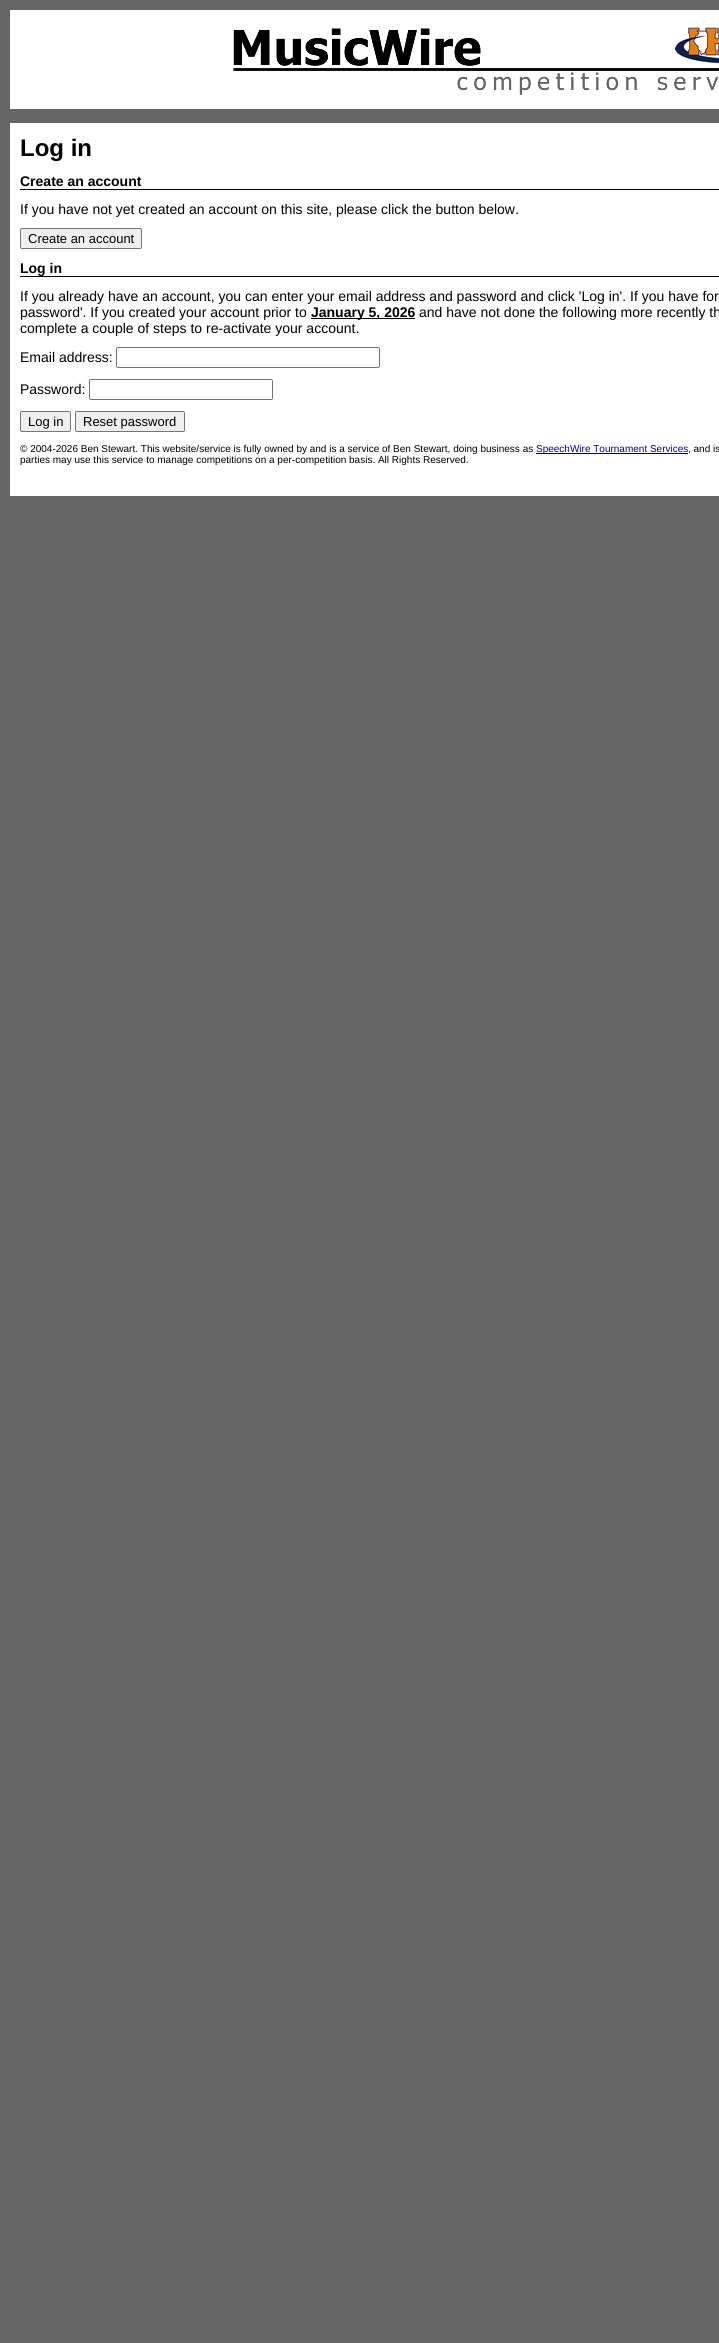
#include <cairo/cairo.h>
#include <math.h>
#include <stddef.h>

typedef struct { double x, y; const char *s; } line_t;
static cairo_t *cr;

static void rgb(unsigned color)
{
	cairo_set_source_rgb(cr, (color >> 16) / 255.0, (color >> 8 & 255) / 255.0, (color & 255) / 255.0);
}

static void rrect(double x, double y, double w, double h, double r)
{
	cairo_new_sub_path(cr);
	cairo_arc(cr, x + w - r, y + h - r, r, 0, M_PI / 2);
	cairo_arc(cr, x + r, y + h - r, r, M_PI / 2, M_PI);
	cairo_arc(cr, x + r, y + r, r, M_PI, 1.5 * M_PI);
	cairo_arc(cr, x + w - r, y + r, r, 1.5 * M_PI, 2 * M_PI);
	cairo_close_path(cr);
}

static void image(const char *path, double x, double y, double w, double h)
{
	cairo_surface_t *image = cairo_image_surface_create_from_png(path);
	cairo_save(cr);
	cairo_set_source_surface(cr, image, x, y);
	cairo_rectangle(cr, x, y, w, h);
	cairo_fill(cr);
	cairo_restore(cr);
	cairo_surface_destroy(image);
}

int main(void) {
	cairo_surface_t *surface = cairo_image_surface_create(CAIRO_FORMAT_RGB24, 719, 2343);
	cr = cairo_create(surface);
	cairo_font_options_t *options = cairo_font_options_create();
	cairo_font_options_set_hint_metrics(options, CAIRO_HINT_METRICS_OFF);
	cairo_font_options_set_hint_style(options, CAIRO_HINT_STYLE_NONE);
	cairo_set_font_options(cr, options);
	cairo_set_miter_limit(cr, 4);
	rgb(0x666666);
	cairo_paint(cr);
	rgb(0xffffff);
	cairo_rectangle(cr, 10, 10, 709, 99);
	cairo_fill(cr);
	image("img/1.png", 233, 27, 486, 68);
	cairo_rectangle(cr, 10, 123, 709, 373);
	cairo_fill(cr);
	rgb(0x000000);
	cairo_rectangle(cr, 20, 189, 699, 1);
	cairo_fill(cr);
	rgb(0xefefef);
	rrect(20.5, 228.5, 121, 20, 1.5);
	cairo_fill_preserve(cr);
	rgb(0x767676);
	cairo_set_line_width(cr, 1);
	cairo_stroke(cr);
	rgb(0x000000);
	cairo_rectangle(cr, 20, 276, 699, 1);
	cairo_fill(cr);
	cairo_rectangle(cr, 311, 318, 104, 1);
	cairo_fill(cr);
	rrect(116.5, 347.5, 263, 20, 1.5);
	rgb(0x767676);
	cairo_stroke(cr);
	rrect(89.5, 379.5, 183, 20, 1.5);
	cairo_stroke(cr);
	rgb(0xefefef);
	rrect(20.5, 411.5, 50, 20, 1.5);
	cairo_fill_preserve(cr);
	rgb(0x767676);
	cairo_stroke(cr);
	rgb(0xefefef);
	rrect(75.5, 411.5, 109, 20, 1.5);
	cairo_fill_preserve(cr);
	rgb(0x767676);
	cairo_stroke(cr);
	rgb(0x000099);
	cairo_rectangle(cr, 536, 453, 152, 1);
	cairo_fill(cr);
	cairo_select_font_face(cr, "Liberation Sans", CAIRO_FONT_SLANT_NORMAL, CAIRO_FONT_WEIGHT_BOLD);
	cairo_set_font_size(cr, 24);
	rgb(0x000000);
	cairo_move_to(cr, 20, 156);
	cairo_show_text(cr, "Log in");
	cairo_set_font_size(cr, 14);
	cairo_move_to(cr, 20, 186);
	cairo_show_text(cr, "Create an account");
	cairo_select_font_face(cr, "Liberation Sans", CAIRO_FONT_SLANT_NORMAL, CAIRO_FONT_WEIGHT_NORMAL);
	cairo_move_to(cr, 20, 214);
	cairo_show_text(cr, "If you have not yet created an account on this site, please click the button below.");
	cairo_set_font_size(cr, 13);
	cairo_move_to(cr, 28, 243);
	cairo_show_text(cr, "Create an account");
	cairo_select_font_face(cr, "Liberation Sans", CAIRO_FONT_SLANT_NORMAL, CAIRO_FONT_WEIGHT_BOLD);
	cairo_set_font_size(cr, 14);
	cairo_move_to(cr, 20, 273);
	cairo_show_text(cr, "Log in");
	cairo_select_font_face(cr, "Liberation Sans", CAIRO_FONT_SLANT_NORMAL, CAIRO_FONT_WEIGHT_NORMAL);
	cairo_move_to(cr, 20, 301);
	cairo_show_text(cr, "If you already have an account, you can enter your email address and password and click 'Log in'. If you have for");
	cairo_move_to(cr, 20, 317);
	cairo_show_text(cr, "password'. If you created your account prior to");
	cairo_select_font_face(cr, "Liberation Sans", CAIRO_FONT_SLANT_NORMAL, CAIRO_FONT_WEIGHT_BOLD);
	cairo_move_to(cr, 311, 317);
	cairo_show_text(cr, "January 5, 2026");
	cairo_select_font_face(cr, "Liberation Sans", CAIRO_FONT_SLANT_NORMAL, CAIRO_FONT_WEIGHT_NORMAL);
	{
		static const line_t items[] = {
			{419, 317, "and have not done the following more recently th"},
			{20, 333, "complete a couple of steps to re-activate your account."},
			{20, 362, "Email address:"},
			{20, 394, "Password:"},
		};
		for (size_t i = 0; i < sizeof items / sizeof *items; i++) {
			cairo_move_to(cr, items[i].x, items[i].y);
			cairo_show_text(cr, items[i].s);
		}
	}
	cairo_set_font_size(cr, 13);
	cairo_move_to(cr, 28, 426);
	cairo_show_text(cr, "Log in");
	cairo_move_to(cr, 83, 426);
	cairo_show_text(cr, "Reset password");
	cairo_set_font_size(cr, 10);
	cairo_move_to(cr, 20, 452);
	cairo_show_text(cr, "© 2004-2026 Ben Stewart. This website/service is fully owned by and is a service of Ben Stewart, doing business as");
	rgb(0x000099);
	cairo_move_to(cr, 536, 452);
	cairo_show_text(cr, "SpeechWire Tournament Services");
	rgb(0x000000);
	cairo_move_to(cr, 688, 452);
	cairo_show_text(cr, ", and is");
	cairo_move_to(cr, 20, 463);
	cairo_show_text(cr, "parties may use this service to manage competitions on a per-competition basis. All Rights Reserved.");
	cairo_surface_write_to_png(surface, "page.png");
	cairo_font_options_destroy(options);
	cairo_destroy(cr);
	cairo_surface_destroy(surface);
	return 0;
}
